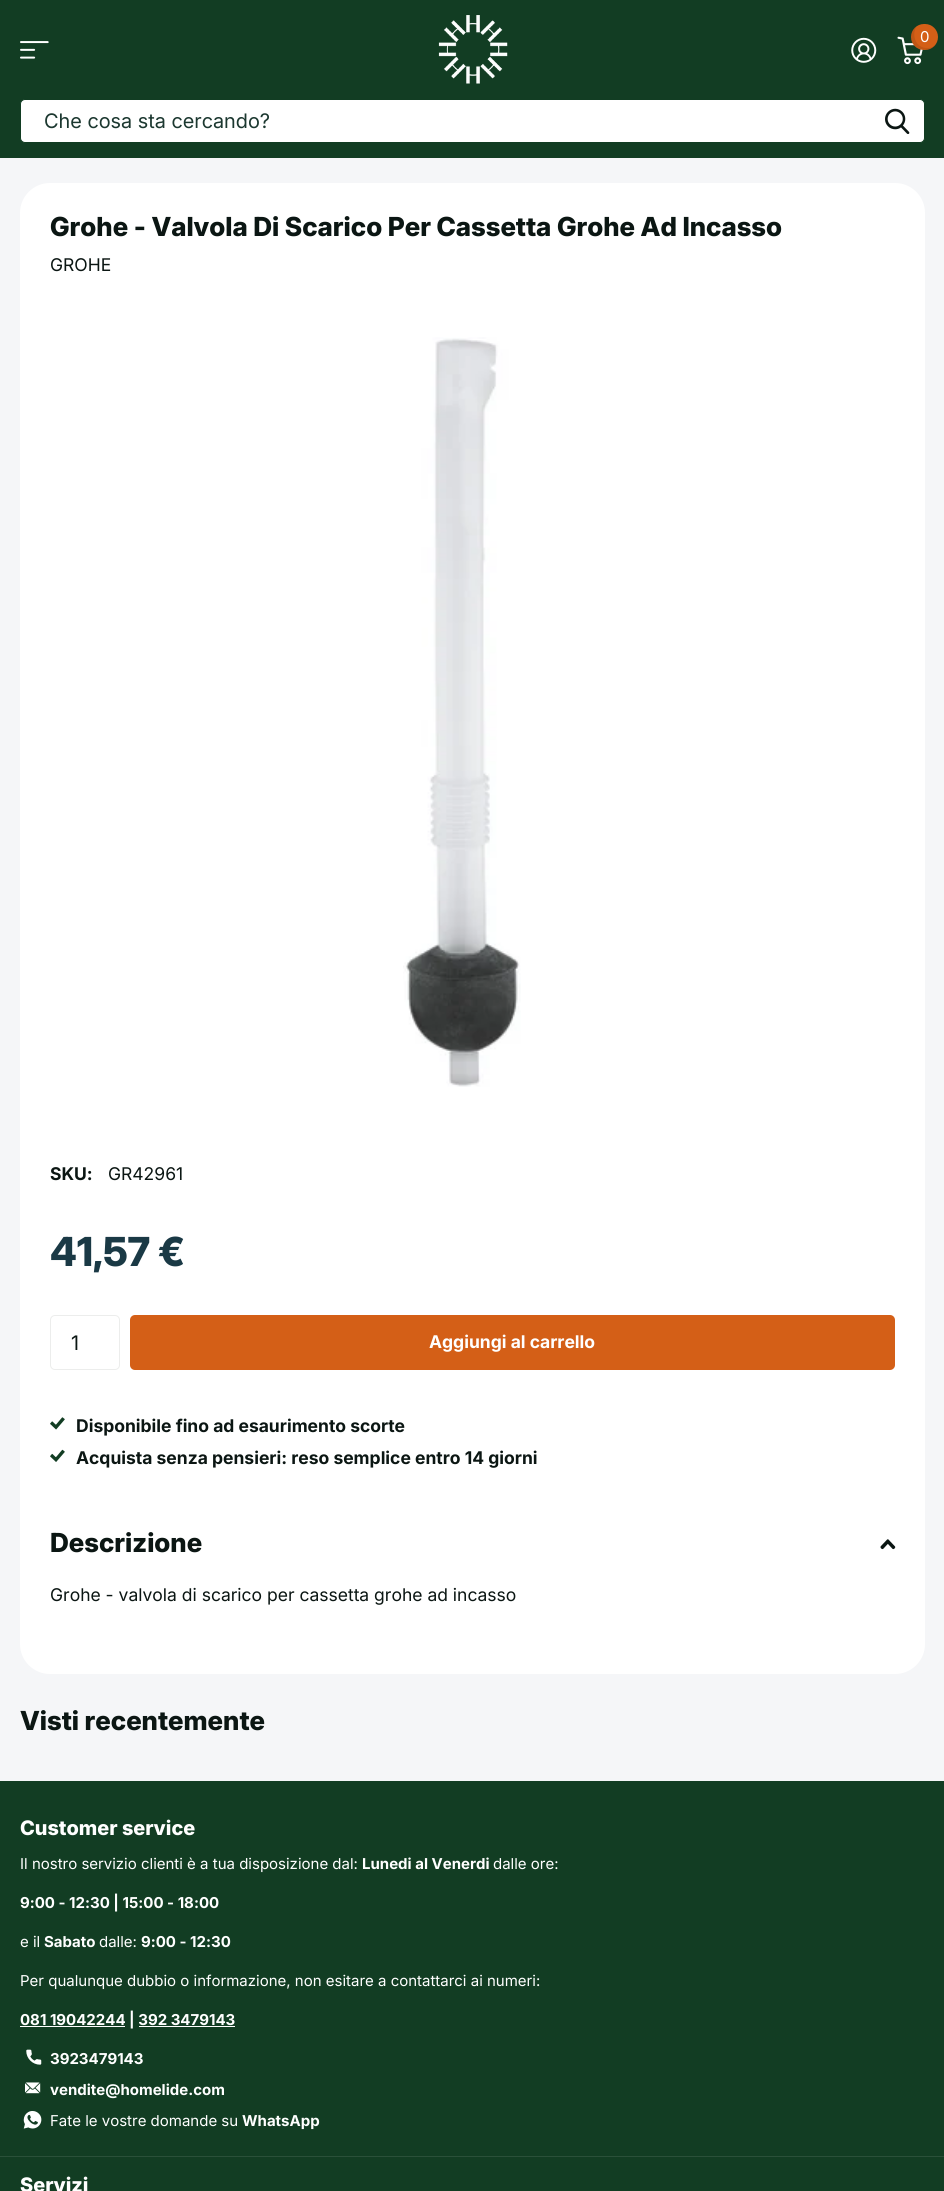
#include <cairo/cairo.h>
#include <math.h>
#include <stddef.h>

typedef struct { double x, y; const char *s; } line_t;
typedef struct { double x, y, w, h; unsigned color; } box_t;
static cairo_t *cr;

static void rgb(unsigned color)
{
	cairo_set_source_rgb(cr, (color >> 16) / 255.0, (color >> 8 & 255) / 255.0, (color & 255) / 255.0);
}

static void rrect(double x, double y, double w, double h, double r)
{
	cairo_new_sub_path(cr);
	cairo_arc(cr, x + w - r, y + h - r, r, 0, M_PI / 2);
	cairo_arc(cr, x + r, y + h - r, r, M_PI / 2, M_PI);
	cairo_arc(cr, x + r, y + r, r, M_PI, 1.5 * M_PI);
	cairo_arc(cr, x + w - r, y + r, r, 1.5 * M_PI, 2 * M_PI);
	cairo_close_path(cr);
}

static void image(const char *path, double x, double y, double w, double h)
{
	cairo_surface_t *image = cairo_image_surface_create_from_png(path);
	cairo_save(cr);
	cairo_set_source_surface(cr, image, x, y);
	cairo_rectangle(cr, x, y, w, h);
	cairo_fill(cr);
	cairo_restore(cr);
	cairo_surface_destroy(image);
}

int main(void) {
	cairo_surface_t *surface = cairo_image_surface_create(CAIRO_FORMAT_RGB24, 944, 2191);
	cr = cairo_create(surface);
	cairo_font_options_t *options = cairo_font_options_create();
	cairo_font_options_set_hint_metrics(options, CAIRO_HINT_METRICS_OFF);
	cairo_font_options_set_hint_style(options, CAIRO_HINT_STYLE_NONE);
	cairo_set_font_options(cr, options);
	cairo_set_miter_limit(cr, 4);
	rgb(0xf5f6f8);
	cairo_paint(cr);
	rgb(0x123d23);
	cairo_rectangle(cr, 0, 0, 944, 158);
	cairo_fill(cr);
	image("img/1.png", 438, 15, 70, 69);
	image("img/2.png", 851, 37, 26, 26);
	image("img/3.png", 897, 36, 26, 29);
	rgb(0xd45f17);
	rrect(911, 24, 27, 26, 13);
	cairo_fill(cr);
	cairo_set_source_rgba(cr, 0, 0, 0, 0.1);
	cairo_new_path(cr);
	cairo_move_to(cr, 935, 45.5);
	cairo_curve_to(cr, 933, 47, 930.5, 48, 927, 48);
	cairo_curve_to(cr, 915, 48, 911.5, 34, 916.5, 26.5);
	cairo_curve_to(cr, 910, 31, 909, 40.5, 915, 46);
	cairo_curve_to(cr, 920.5, 51.5, 930, 51, 935, 45.5);
	cairo_close_path(cr);
	cairo_fill(cr);
	image("img/4.png", 20, 41, 29, 18);
	rgb(0xffffff);
	rrect(20.5, 99.5, 904, 43, 4.5);
	cairo_fill_preserve(cr);
	rgb(0x123d23);
	cairo_set_line_width(cr, 1);
	cairo_stroke(cr);
	image("img/5.png", 885, 108, 25, 26);
	rgb(0xffffff);
	rrect(20, 183, 905, 1491, 30);
	cairo_fill(cr);
	image("img/6.png", 403, 337, 118, 750);
	rrect(50.5, 1315.5, 69, 54, 4.5);
	rgb(0xecedec);
	cairo_stroke(cr);
	rgb(0xd45f17);
	rrect(130, 1315, 765, 55, 5);
	cairo_fill(cr);
	image("img/7.png", 50, 1417, 15, 13);
	image("img/8.png", 50, 1449, 15, 13);
	image("img/9.png", 880, 1539, 16, 11);
	{
		static const box_t items[] = {
			{0, 1781, 944, 410, 0x123d23},
			{20, 2026, 105, 1, 0xffffff},
			{139, 2026, 96, 1, 0xffffff},
		};
		for (size_t i = 0; i < sizeof items / sizeof *items; i++) {
			rgb(items[i].color);
			cairo_rectangle(cr, items[i].x, items[i].y, items[i].w, items[i].h);
			cairo_fill(cr);
		}
	}
	image("img/10.png", 26, 2049, 16, 16);
	image("img/11.png", 25, 2082, 16, 12);
	image("img/12.png", 23, 2111, 19, 18);
	rgb(0x2a5039);
	cairo_rectangle(cr, 0, 2156, 944, 1);
	cairo_fill(cr);
	cairo_select_font_face(cr, "Inter", CAIRO_FONT_SLANT_NORMAL, CAIRO_FONT_WEIGHT_NORMAL);
	cairo_set_font_size(cr, 15);
	rgb(0xffffff);
	cairo_move_to(cr, 920, 42);
	cairo_show_text(cr, "0");
	cairo_select_font_face(cr, "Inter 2", CAIRO_FONT_SLANT_NORMAL, CAIRO_FONT_WEIGHT_NORMAL);
	cairo_set_font_size(cr, 20);
	rgb(0x1c3830);
	cairo_move_to(cr, 44, 128);
	cairo_show_text(cr, "Che cosa sta cercando?");
	cairo_select_font_face(cr, "Inter ExtraBold", CAIRO_FONT_SLANT_NORMAL, CAIRO_FONT_WEIGHT_NORMAL);
	cairo_set_font_size(cr, 26.25);
	rgb(0x0b1613);
	cairo_move_to(cr, 50, 236);
	cairo_show_text(cr, "Grohe - Valvola Di Scarico Per Cassetta Grohe Ad Incasso");
	cairo_select_font_face(cr, "Inter", CAIRO_FONT_SLANT_NORMAL, CAIRO_FONT_WEIGHT_NORMAL);
	cairo_set_font_size(cr, 17.5);
	cairo_move_to(cr, 50, 271);
	cairo_show_text(cr, "GROHE");
	cairo_select_font_face(cr, "Inter", CAIRO_FONT_SLANT_NORMAL, CAIRO_FONT_WEIGHT_BOLD);
	cairo_move_to(cr, 50, 1180);
	cairo_show_text(cr, "SKU:");
	cairo_select_font_face(cr, "Inter", CAIRO_FONT_SLANT_NORMAL, CAIRO_FONT_WEIGHT_NORMAL);
	cairo_move_to(cr, 108, 1180);
	cairo_show_text(cr, "GR42961");
	cairo_select_font_face(cr, "Inter 2 ExtraBold", CAIRO_FONT_SLANT_NORMAL, CAIRO_FONT_WEIGHT_NORMAL);
	cairo_set_font_size(cr, 40);
	rgb(0x1a3945);
	cairo_move_to(cr, 50, 1266);
	cairo_show_text(cr, "41,57 €");
	cairo_select_font_face(cr, "Inter 2", CAIRO_FONT_SLANT_NORMAL, CAIRO_FONT_WEIGHT_NORMAL);
	cairo_set_font_size(cr, 20);
	rgb(0x0b1613);
	cairo_move_to(cr, 71, 1350);
	cairo_show_text(cr, "1");
	cairo_select_font_face(cr, "Inter", CAIRO_FONT_SLANT_NORMAL, CAIRO_FONT_WEIGHT_BOLD);
	cairo_set_font_size(cr, 17.5);
	rgb(0xffffff);
	cairo_move_to(cr, 429, 1348);
	cairo_show_text(cr, "Aggiungi al carrello");
	rgb(0x0b1613);
	cairo_move_to(cr, 76, 1432);
	cairo_show_text(cr, "Disponibile fino ad esaurimento scorte");
	cairo_move_to(cr, 76, 1464);
	cairo_show_text(cr, "Acquista senza pensieri: reso semplice entro 14 giorni");
	cairo_select_font_face(cr, "Inter ExtraBold", CAIRO_FONT_SLANT_NORMAL, CAIRO_FONT_WEIGHT_NORMAL);
	cairo_set_font_size(cr, 26.25);
	cairo_move_to(cr, 50, 1552);
	cairo_show_text(cr, "Descrizione");
	cairo_select_font_face(cr, "Inter", CAIRO_FONT_SLANT_NORMAL, CAIRO_FONT_WEIGHT_NORMAL);
	cairo_set_font_size(cr, 17.5);
	cairo_move_to(cr, 50, 1601);
	cairo_show_text(cr, "Grohe - valvola di scarico per cassetta grohe ad incasso");
	cairo_select_font_face(cr, "Inter ExtraBold", CAIRO_FONT_SLANT_NORMAL, CAIRO_FONT_WEIGHT_NORMAL);
	cairo_set_font_size(cr, 26.25);
	cairo_move_to(cr, 20, 1730);
	cairo_show_text(cr, "Visti recentemente");
	cairo_select_font_face(cr, "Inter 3 ExtraBold", CAIRO_FONT_SLANT_NORMAL, CAIRO_FONT_WEIGHT_NORMAL);
	cairo_set_font_size(cr, 20);
	rgb(0xffffff);
	cairo_move_to(cr, 20, 1835);
	cairo_show_text(cr, "Customer service");
	cairo_select_font_face(cr, "Inter", CAIRO_FONT_SLANT_NORMAL, CAIRO_FONT_WEIGHT_NORMAL);
	cairo_set_font_size(cr, 15);
	cairo_move_to(cr, 20, 1869);
	cairo_show_text(cr, "Il nostro servizio clienti è a tua disposizione dal:");
	cairo_select_font_face(cr, "Inter", CAIRO_FONT_SLANT_NORMAL, CAIRO_FONT_WEIGHT_BOLD);
	cairo_move_to(cr, 362, 1869);
	cairo_show_text(cr, "Lunedi al Venerdi");
	cairo_select_font_face(cr, "Inter", CAIRO_FONT_SLANT_NORMAL, CAIRO_FONT_WEIGHT_NORMAL);
	cairo_move_to(cr, 493, 1869);
	cairo_show_text(cr, "dalle ore:");
	cairo_select_font_face(cr, "Inter", CAIRO_FONT_SLANT_NORMAL, CAIRO_FONT_WEIGHT_BOLD);
	cairo_move_to(cr, 20, 1908);
	cairo_show_text(cr, "9:00 - 12:30 | 15:00 - 18:00");
	cairo_select_font_face(cr, "Inter", CAIRO_FONT_SLANT_NORMAL, CAIRO_FONT_WEIGHT_NORMAL);
	cairo_move_to(cr, 20, 1947);
	cairo_show_text(cr, "e il");
	cairo_select_font_face(cr, "Inter", CAIRO_FONT_SLANT_NORMAL, CAIRO_FONT_WEIGHT_BOLD);
	cairo_move_to(cr, 44, 1947);
	cairo_show_text(cr, "Sabato");
	cairo_select_font_face(cr, "Inter", CAIRO_FONT_SLANT_NORMAL, CAIRO_FONT_WEIGHT_NORMAL);
	cairo_move_to(cr, 99, 1947);
	cairo_show_text(cr, "dalle:");
	cairo_select_font_face(cr, "Inter", CAIRO_FONT_SLANT_NORMAL, CAIRO_FONT_WEIGHT_BOLD);
	cairo_move_to(cr, 141, 1947);
	cairo_show_text(cr, "9:00 - 12:30");
	cairo_select_font_face(cr, "Inter", CAIRO_FONT_SLANT_NORMAL, CAIRO_FONT_WEIGHT_NORMAL);
	cairo_move_to(cr, 20, 1986);
	cairo_show_text(cr, "Per qualunque dubbio o informazione, non esitare a contattarci ai numeri:");
	cairo_select_font_face(cr, "Inter", CAIRO_FONT_SLANT_NORMAL, CAIRO_FONT_WEIGHT_BOLD);
	{
		static const line_t items[] = {
			{20, 2025, "081 19042244 | 392 3479143"},
			{50, 2064, "3923479143"},
			{50, 2095, "vendite@homelide.com"},
		};
		for (size_t i = 0; i < sizeof items / sizeof *items; i++) {
			cairo_move_to(cr, items[i].x, items[i].y);
			cairo_show_text(cr, items[i].s);
		}
	}
	cairo_select_font_face(cr, "Inter", CAIRO_FONT_SLANT_NORMAL, CAIRO_FONT_WEIGHT_NORMAL);
	cairo_move_to(cr, 50, 2126);
	cairo_show_text(cr, "Fate le vostre domande su");
	cairo_select_font_face(cr, "Inter", CAIRO_FONT_SLANT_NORMAL, CAIRO_FONT_WEIGHT_BOLD);
	cairo_move_to(cr, 242, 2126);
	cairo_show_text(cr, "WhatsApp");
	cairo_select_font_face(cr, "Inter 3 ExtraBold", CAIRO_FONT_SLANT_NORMAL, CAIRO_FONT_WEIGHT_NORMAL);
	cairo_set_font_size(cr, 20);
	cairo_move_to(cr, 20, 2192);
	cairo_show_text(cr, "Servizi");
	cairo_surface_write_to_png(surface, "page.png");
	cairo_font_options_destroy(options);
	cairo_destroy(cr);
	cairo_surface_destroy(surface);
	return 0;
}
